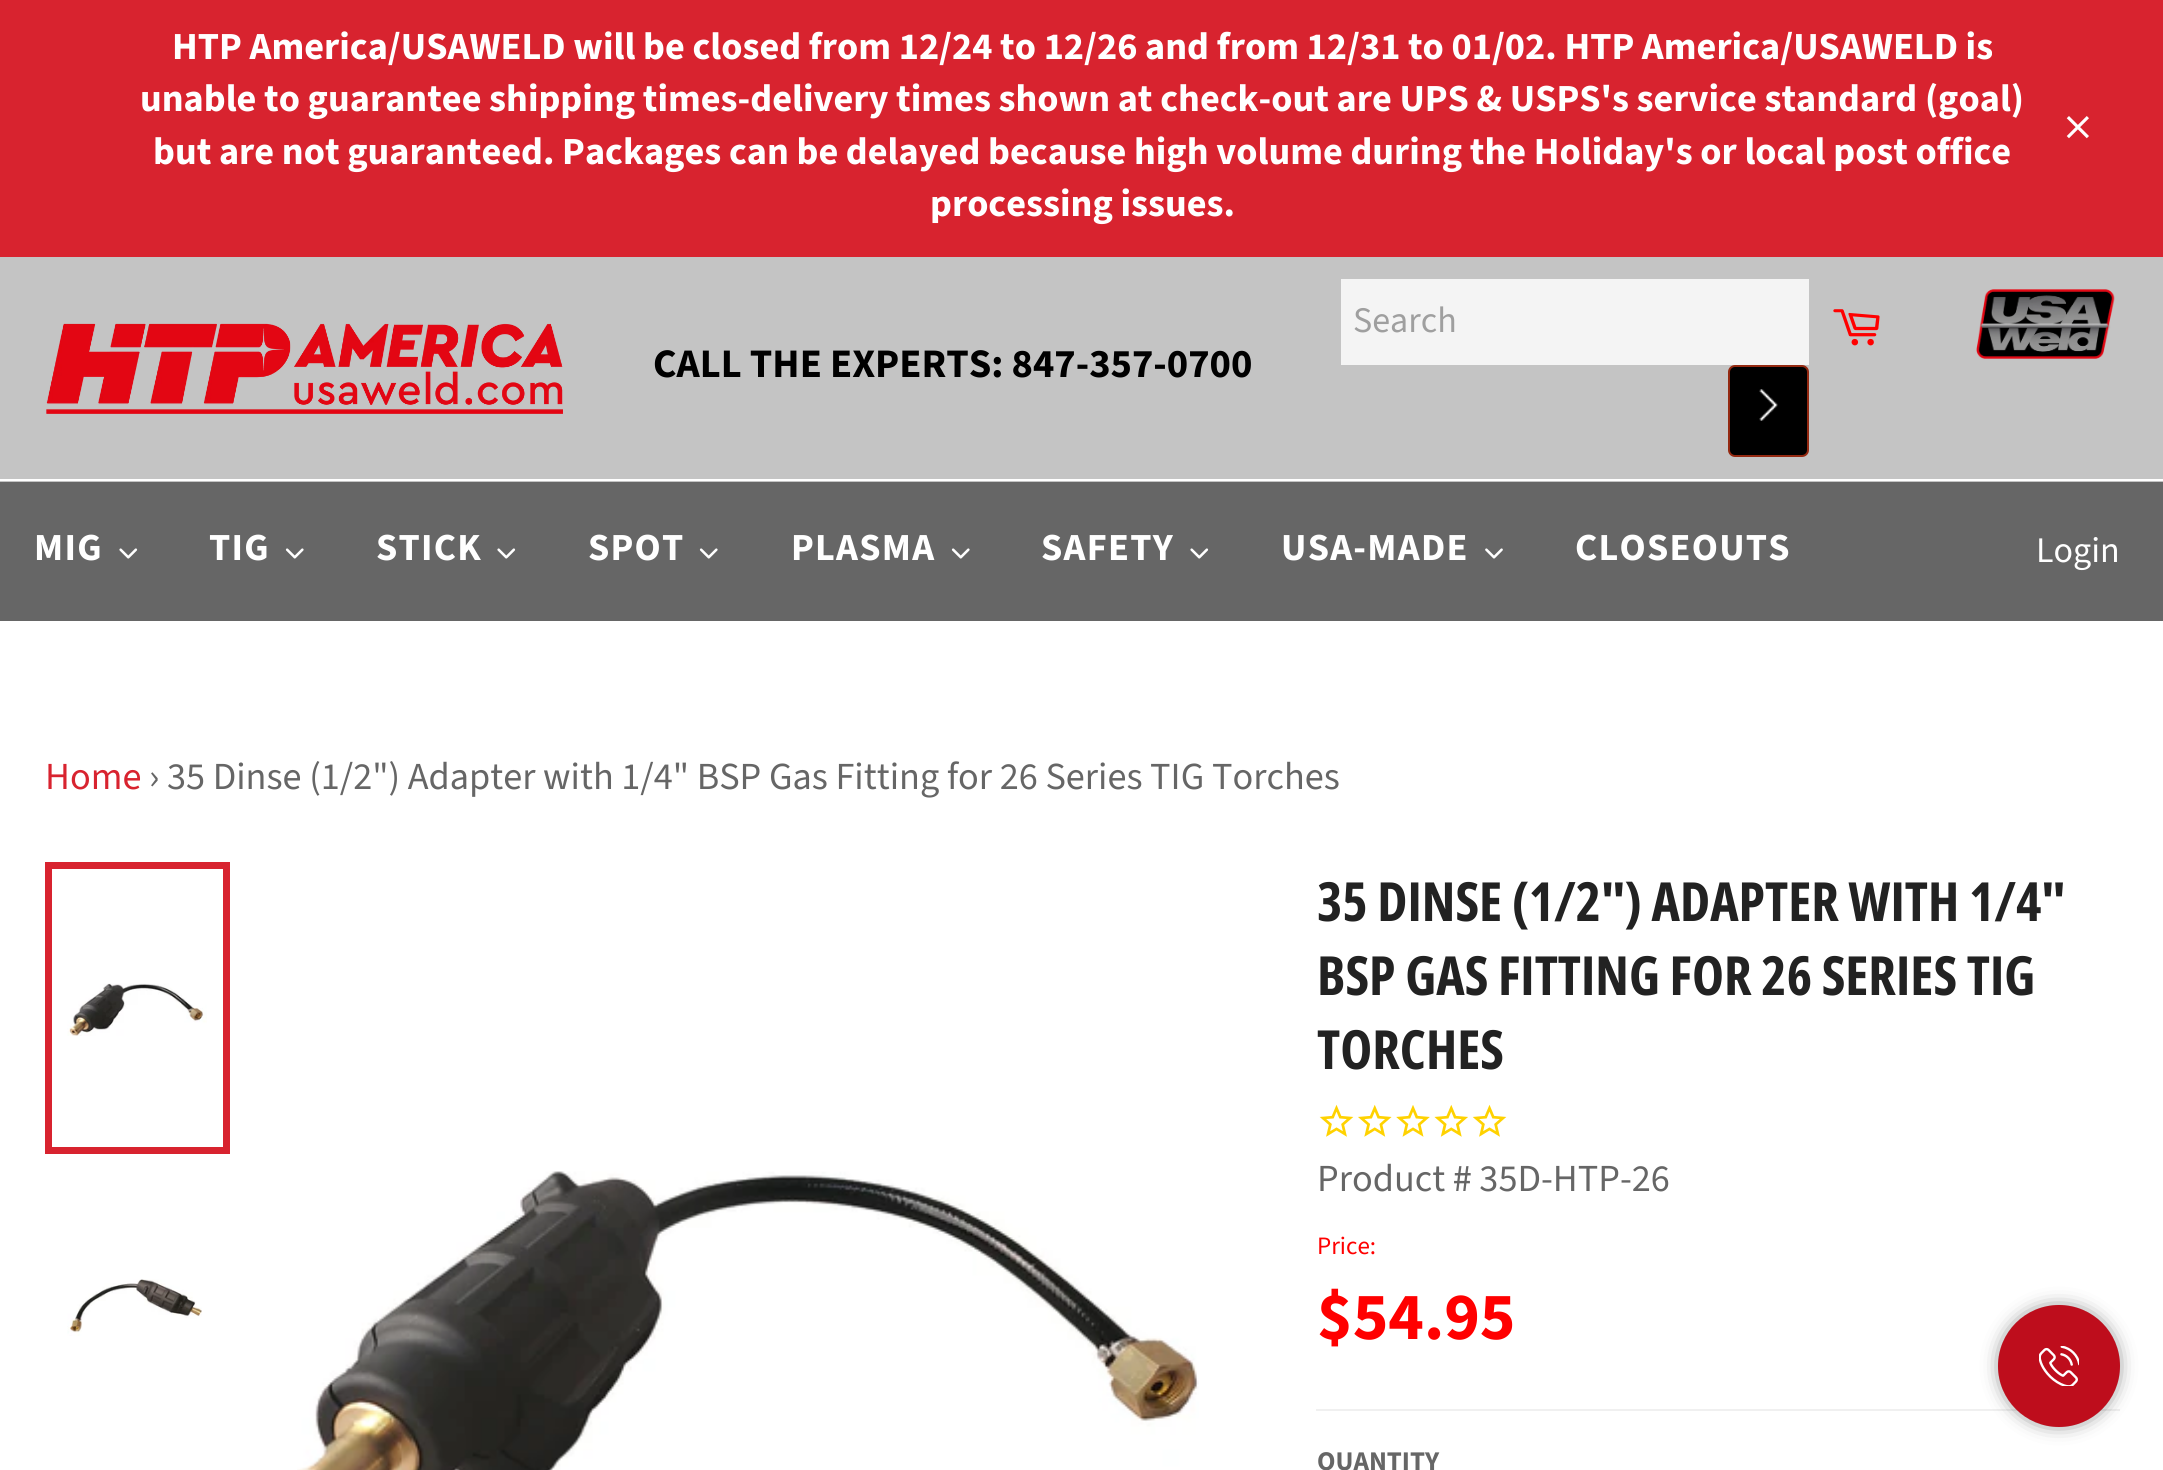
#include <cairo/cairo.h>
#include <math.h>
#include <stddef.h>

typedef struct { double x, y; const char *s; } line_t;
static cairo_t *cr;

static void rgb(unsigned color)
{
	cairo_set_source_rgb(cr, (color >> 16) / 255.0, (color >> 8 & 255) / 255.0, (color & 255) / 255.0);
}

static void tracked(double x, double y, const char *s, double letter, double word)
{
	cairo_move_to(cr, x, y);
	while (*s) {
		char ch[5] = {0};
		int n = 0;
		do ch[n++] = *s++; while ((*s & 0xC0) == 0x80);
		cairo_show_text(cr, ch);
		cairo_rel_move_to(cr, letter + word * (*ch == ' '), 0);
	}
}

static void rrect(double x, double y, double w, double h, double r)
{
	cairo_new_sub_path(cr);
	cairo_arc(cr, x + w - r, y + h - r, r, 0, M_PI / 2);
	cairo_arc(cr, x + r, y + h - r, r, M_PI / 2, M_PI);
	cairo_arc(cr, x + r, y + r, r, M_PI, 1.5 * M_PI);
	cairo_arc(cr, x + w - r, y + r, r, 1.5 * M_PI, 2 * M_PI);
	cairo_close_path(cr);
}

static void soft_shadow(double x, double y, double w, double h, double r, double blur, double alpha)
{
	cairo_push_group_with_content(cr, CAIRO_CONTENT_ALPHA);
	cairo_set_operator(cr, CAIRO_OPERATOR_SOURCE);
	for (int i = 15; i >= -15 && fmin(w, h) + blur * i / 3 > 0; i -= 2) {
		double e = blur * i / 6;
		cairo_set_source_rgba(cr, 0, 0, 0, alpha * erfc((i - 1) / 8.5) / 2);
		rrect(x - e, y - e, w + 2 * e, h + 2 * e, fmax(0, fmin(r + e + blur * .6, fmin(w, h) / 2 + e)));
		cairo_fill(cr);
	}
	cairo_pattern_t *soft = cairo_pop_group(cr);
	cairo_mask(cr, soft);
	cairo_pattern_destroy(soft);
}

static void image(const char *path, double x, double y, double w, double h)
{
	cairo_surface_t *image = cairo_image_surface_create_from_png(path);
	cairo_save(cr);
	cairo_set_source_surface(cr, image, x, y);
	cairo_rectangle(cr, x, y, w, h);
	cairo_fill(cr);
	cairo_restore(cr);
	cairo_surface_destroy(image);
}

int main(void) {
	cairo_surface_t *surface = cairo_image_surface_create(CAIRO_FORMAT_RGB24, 2163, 1470);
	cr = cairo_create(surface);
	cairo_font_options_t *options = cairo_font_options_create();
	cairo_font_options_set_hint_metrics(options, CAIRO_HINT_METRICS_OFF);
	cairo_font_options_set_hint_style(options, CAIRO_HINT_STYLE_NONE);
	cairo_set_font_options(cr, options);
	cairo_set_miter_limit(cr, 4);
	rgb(0xc4c4c4);
	cairo_paint(cr);
	rgb(0xd8232f);
	cairo_rectangle(cr, 0, 0, 2163, 257);
	cairo_fill(cr);
	image("img/1.png", 2066, 116, 23, 23);
	rgb(0xf4f4f4);
	cairo_rectangle(cr, 1341, 279, 468, 86);
	cairo_fill(cr);
	rgb(0x000000);
	rrect(1729, 366, 79, 90, 6);
	cairo_fill_preserve(cr);
	rgb(0x942911);
	cairo_stroke(cr);
	image("img/2.png", 1759, 389, 19, 32);
	image("img/3.png", 1833, 309, 47, 37);
	image("img/4.png", 1976, 289, 139, 70);
	image("img/5.png", 46, 323, 517, 91);
	rgb(0xffffff);
	cairo_rectangle(cr, 0, 479, 2163, 2);
	cairo_fill(cr);
	rgb(0x666666);
	cairo_rectangle(cr, 0, 482, 2163, 139);
	cairo_fill(cr);
	image("img/6.png", 119, 548, 19, 11);
	image("img/7.png", 285, 548, 19, 11);
	image("img/6.png", 497, 548, 19, 11);
	image("img/7.png", 699, 548, 19, 11);
	image("img/7.png", 951, 548, 19, 11);
	image("img/6.png", 1190, 548, 19, 11);
	image("img/8.png", 1485, 548, 18, 11);
	rgb(0xffffff);
	cairo_rectangle(cr, 0, 621, 2163, 849);
	cairo_fill(cr);
	image("img/9.png", 67, 983, 140, 53);
	cairo_rectangle(cr, 48.5, 865.5, 178, 285);
	rgb(0xd8232f);
	cairo_set_line_width(cr, 7);
	cairo_stroke(cr);
	image("img/10.png", 67, 1279, 135, 57);
	image("img/11.png", 297, 1171, 902, 299);
	image("img/12.png", 1319, 1104, 35, 33);
	image("img/13.png", 1358, 1104, 34, 33);
	image("img/14.png", 1396, 1105, 34, 32);
	image("img/15.png", 1434, 1104, 34, 33);
	image("img/12.png", 1472, 1104, 35, 33);
	rgb(0xf0f0f0);
	cairo_rectangle(cr, 1316, 1409, 804, 2);
	cairo_fill(cr);
	rgb(0x000000);
	soft_shadow(2007, 1314, 104, 104, 52, 11, 1);
	rgb(0xbe0d1c);
	cairo_arc(cr, 2059, 1366, 61, 0, 2 * M_PI);
	cairo_fill(cr);
	image("img/16.png", 2039, 1346, 40, 40);
	cairo_select_font_face(cr, "Source Sans Pro", CAIRO_FONT_SLANT_NORMAL, CAIRO_FONT_WEIGHT_BOLD);
	cairo_set_font_size(cr, 38.25);
	rgb(0xffffff);
	{
		static const line_t items[] = {
			{172, 59, "HTP America/USAWELD will be closed from 12/24 to 12/26 and from 12/31 to 01/02. HTP America/USAWELD is"},
			{140, 111, "unable to guarantee shipping times-delivery times shown at check-out are UPS & USPS's service standard (goal)"},
			{153, 164, "but are not guaranteed. Packages can be delayed because high volume during the Holiday's or local post office"},
			{930, 216, "processing issues."},
		};
		for (size_t i = 0; i < sizeof items / sizeof *items; i++) {
			cairo_move_to(cr, items[i].x, items[i].y);
			cairo_show_text(cr, items[i].s);
		}
	}
	cairo_select_font_face(cr, "Source Sans Pro", CAIRO_FONT_SLANT_NORMAL, CAIRO_FONT_WEIGHT_NORMAL);
	cairo_set_font_size(cr, 36);
	rgb(0x9f9f9f);
	cairo_move_to(cr, 1353, 332);
	cairo_show_text(cr, "Search");
	cairo_select_font_face(cr, "Source Sans Pro", CAIRO_FONT_SLANT_NORMAL, CAIRO_FONT_WEIGHT_BOLD);
	cairo_set_font_size(cr, 40.5);
	rgb(0x000000);
	cairo_move_to(cr, 653, 377);
	cairo_show_text(cr, "CALL THE EXPERTS: 847-357-0700");
	cairo_set_font_size(cr, 38.25);
	rgb(0xffffff);
	{
		static const line_t items[] = {
			{34, 560, "MIG"},
			{209, 560, "TIG"},
			{376, 560, "STICK"},
			{588, 560, "SPOT"},
			{791, 560, "PLASMA"},
			{1041, 560, "SAFETY"},
			{1281, 560, "USA-MADE"},
			{1575, 560, "CLOSEOUTS"},
		};
		for (size_t i = 0; i < sizeof items / sizeof *items; i++) {
			tracked(items[i].x, items[i].y, items[i].s, 1.25, 0);
		}
	}
	cairo_select_font_face(cr, "Source Sans Pro", CAIRO_FONT_SLANT_NORMAL, CAIRO_FONT_WEIGHT_NORMAL);
	cairo_set_font_size(cr, 36);
	cairo_move_to(cr, 2036, 562);
	cairo_show_text(cr, "Login");
	cairo_set_font_size(cr, 38.25);
	rgb(0xd8232f);
	cairo_move_to(cr, 45, 789);
	cairo_show_text(cr, "Home");
	rgb(0x666666);
	cairo_move_to(cr, 149, 789);
	cairo_show_text(cr, "› 35 Dinse (1/2\") Adapter with 1/4\" BSP Gas Fitting for 26 Series TIG Torches");
	cairo_select_font_face(cr, "Open Sans Condensed", CAIRO_FONT_SLANT_NORMAL, CAIRO_FONT_WEIGHT_BOLD);
	cairo_set_font_size(cr, 54);
	rgb(0x222222);
	{
		static const line_t items[] = {
			{1317, 921, "35 DINSE (1/2\") ADAPTER WITH 1/4\""},
			{1317, 995, "BSP GAS FITTING FOR 26 SERIES TIG"},
			{1317, 1069, "TORCHES"},
		};
		for (size_t i = 0; i < sizeof items / sizeof *items; i++) {
			cairo_move_to(cr, items[i].x, items[i].y);
			cairo_show_text(cr, items[i].s);
		}
	}
	cairo_select_font_face(cr, "Source Sans Pro", CAIRO_FONT_SLANT_NORMAL, CAIRO_FONT_WEIGHT_NORMAL);
	cairo_set_font_size(cr, 38.25);
	rgb(0x666666);
	cairo_move_to(cr, 1317, 1191);
	cairo_show_text(cr, "Product # 35D-HTP-26");
	cairo_set_font_size(cr, 25);
	rgb(0xff0000);
	cairo_move_to(cr, 1317, 1254);
	cairo_show_text(cr, "Price:");
	cairo_select_font_face(cr, "Source Sans Pro", CAIRO_FONT_SLANT_NORMAL, CAIRO_FONT_WEIGHT_BOLD);
	cairo_set_font_size(cr, 67.5);
	cairo_move_to(cr, 1317, 1339);
	cairo_show_text(cr, "$54.95");
	cairo_set_font_size(cr, 27);
	rgb(0x666666);
	cairo_move_to(cr, 1317, 1470);
	cairo_show_text(cr, "QUANTITY");
	cairo_surface_write_to_png(surface, "page.png");
	cairo_font_options_destroy(options);
	cairo_destroy(cr);
	cairo_surface_destroy(surface);
	return 0;
}
